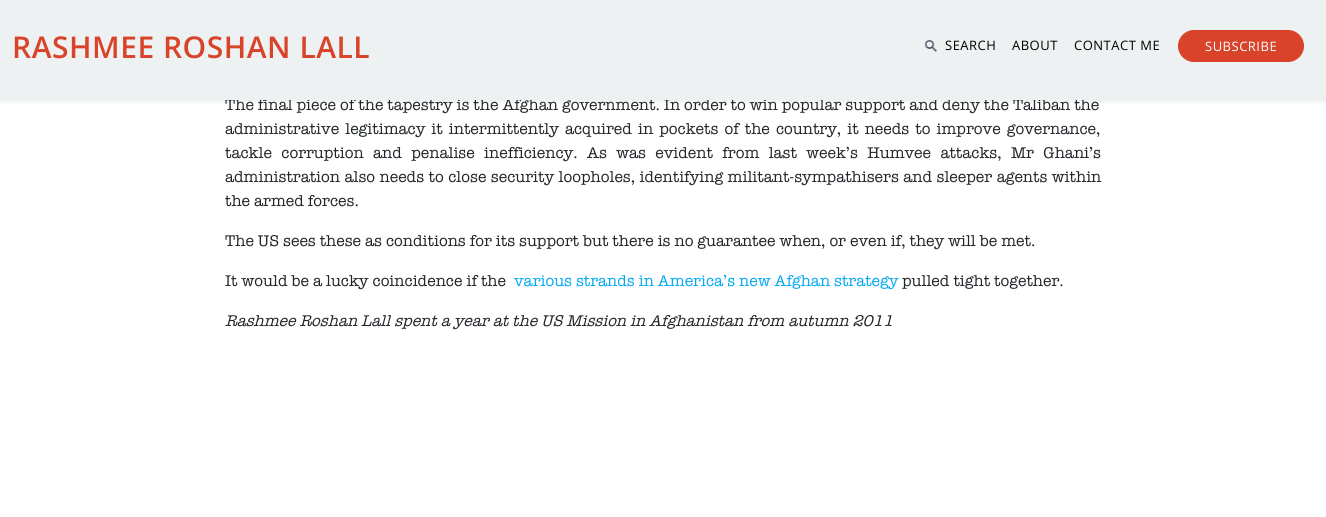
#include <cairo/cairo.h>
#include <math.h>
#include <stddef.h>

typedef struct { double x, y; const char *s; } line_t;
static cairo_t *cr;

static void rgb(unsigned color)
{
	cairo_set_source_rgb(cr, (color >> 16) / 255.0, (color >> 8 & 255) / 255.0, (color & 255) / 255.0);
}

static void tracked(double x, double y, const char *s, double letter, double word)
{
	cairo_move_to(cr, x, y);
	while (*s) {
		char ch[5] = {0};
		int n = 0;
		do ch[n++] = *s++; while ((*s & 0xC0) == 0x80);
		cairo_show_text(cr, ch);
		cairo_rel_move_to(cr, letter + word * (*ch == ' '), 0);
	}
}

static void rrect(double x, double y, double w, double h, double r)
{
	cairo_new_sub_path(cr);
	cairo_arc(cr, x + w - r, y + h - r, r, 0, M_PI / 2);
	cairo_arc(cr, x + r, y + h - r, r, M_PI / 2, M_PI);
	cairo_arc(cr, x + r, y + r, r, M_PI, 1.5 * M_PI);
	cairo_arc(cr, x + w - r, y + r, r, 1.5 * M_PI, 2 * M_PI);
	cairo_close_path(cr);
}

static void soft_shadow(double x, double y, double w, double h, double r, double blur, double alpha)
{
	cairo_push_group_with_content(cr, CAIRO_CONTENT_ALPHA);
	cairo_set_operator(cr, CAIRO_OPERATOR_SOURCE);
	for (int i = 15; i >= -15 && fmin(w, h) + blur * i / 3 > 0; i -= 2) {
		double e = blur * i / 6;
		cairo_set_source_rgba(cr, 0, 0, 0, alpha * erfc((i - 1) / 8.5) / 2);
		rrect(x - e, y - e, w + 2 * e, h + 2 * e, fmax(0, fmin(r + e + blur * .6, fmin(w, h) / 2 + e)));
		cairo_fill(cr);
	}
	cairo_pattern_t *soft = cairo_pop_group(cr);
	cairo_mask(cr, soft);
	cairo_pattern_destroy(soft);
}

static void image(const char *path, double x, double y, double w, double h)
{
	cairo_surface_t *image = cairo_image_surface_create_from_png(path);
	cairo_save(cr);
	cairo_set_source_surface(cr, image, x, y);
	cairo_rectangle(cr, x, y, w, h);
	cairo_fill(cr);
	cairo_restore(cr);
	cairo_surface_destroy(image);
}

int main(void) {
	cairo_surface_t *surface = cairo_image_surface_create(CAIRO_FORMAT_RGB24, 1326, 517);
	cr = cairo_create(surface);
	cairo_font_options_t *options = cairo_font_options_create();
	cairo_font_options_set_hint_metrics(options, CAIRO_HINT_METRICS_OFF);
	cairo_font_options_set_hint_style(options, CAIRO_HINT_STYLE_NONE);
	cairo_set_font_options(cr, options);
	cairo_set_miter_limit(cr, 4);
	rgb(0xffffff);
	cairo_paint(cr);
	rgb(0x000000);
	soft_shadow(0, 2, 1326, 100, 0, 2, 0.07);
	cairo_select_font_face(cr, "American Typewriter", CAIRO_FONT_SLANT_NORMAL, CAIRO_FONT_WEIGHT_NORMAL);
	cairo_set_font_size(cr, 16);
	rgb(0x212529);
	cairo_move_to(cr, 225, 110);
	cairo_show_text(cr, "The final piece of the tapestry is the Afghan government. In order to win popular support and deny the Taliban the");
	rgb(0xedf1f2);
	cairo_rectangle(cr, 0, 0, 1326, 100);
	cairo_fill(cr);
	rgb(0xd9432a);
	rrect(1178.5, 30.5, 125, 31, 15.5);
	cairo_fill_preserve(cr);
	cairo_set_line_width(cr, 1);
	cairo_stroke(cr);
	cairo_select_font_face(cr, "Open Sans", CAIRO_FONT_SLANT_NORMAL, CAIRO_FONT_WEIGHT_NORMAL);
	cairo_set_font_size(cr, 13);
	rgb(0xffffff);
	tracked(1205, 51, "SUBSCRIBE", 0.5, 0);
	rgb(0x000000);
	{
		static const line_t items[] = {
			{1074, 50, "CONTACT ME"},
			{1012, 50, "ABOUT"},
			{945, 50, "SEARCH"},
		};
		for (size_t i = 0; i < sizeof items / sizeof *items; i++) {
			tracked(items[i].x, items[i].y, items[i].s, 0.5, 0);
		}
	}
	image("img/1.png", 924, 40, 13, 12);
	cairo_select_font_face(cr, "Open Sans SemiBold", CAIRO_FONT_SLANT_NORMAL, CAIRO_FONT_WEIGHT_NORMAL);
	cairo_set_font_size(cr, 30);
	rgb(0xd9432a);
	tracked(12, 58, "RASHMEE ROSHAN LALL", 0.5, 0);
	cairo_select_font_face(cr, "American Typewriter", CAIRO_FONT_SLANT_NORMAL, CAIRO_FONT_WEIGHT_NORMAL);
	cairo_set_font_size(cr, 16);
	rgb(0x212529);
	tracked(225, 134, "administrative legitimacy it intermittently acquired in pockets of the country, it needs to improve governance,", 0, 2.1);
	tracked(225, 158, "tackle corruption and penalise inefficiency. As was evident from last week’s Humvee attacks, Mr Ghani’s", 0, 5.4);
	tracked(225, 182, "administration also needs to close security loopholes, identifying militant-sympathisers and sleeper agents within", 0, 0.5);
	{
		static const line_t items[] = {
			{225, 206, "the armed forces."},
			{225, 246, "The US sees these as conditions for its support but there is no guarantee when, or even if, they will be met."},
			{225, 286, "It would be a lucky coincidence if the"},
		};
		for (size_t i = 0; i < sizeof items / sizeof *items; i++) {
			cairo_move_to(cr, items[i].x, items[i].y);
			cairo_show_text(cr, items[i].s);
		}
	}
	rgb(0x03a9f4);
	cairo_move_to(cr, 514, 286);
	cairo_show_text(cr, "various strands in America’s new Afghan strategy");
	rgb(0x212529);
	cairo_move_to(cr, 902, 286);
	cairo_show_text(cr, "pulled tight together.");
	cairo_select_font_face(cr, "American Typewriter", CAIRO_FONT_SLANT_ITALIC, CAIRO_FONT_WEIGHT_NORMAL);
	cairo_move_to(cr, 225, 326);
	cairo_show_text(cr, "Rashmee Roshan Lall spent a year at the US Mission in Afghanistan from autumn 2011");
	cairo_surface_write_to_png(surface, "page.png");
	cairo_font_options_destroy(options);
	cairo_destroy(cr);
	cairo_surface_destroy(surface);
	return 0;
}
